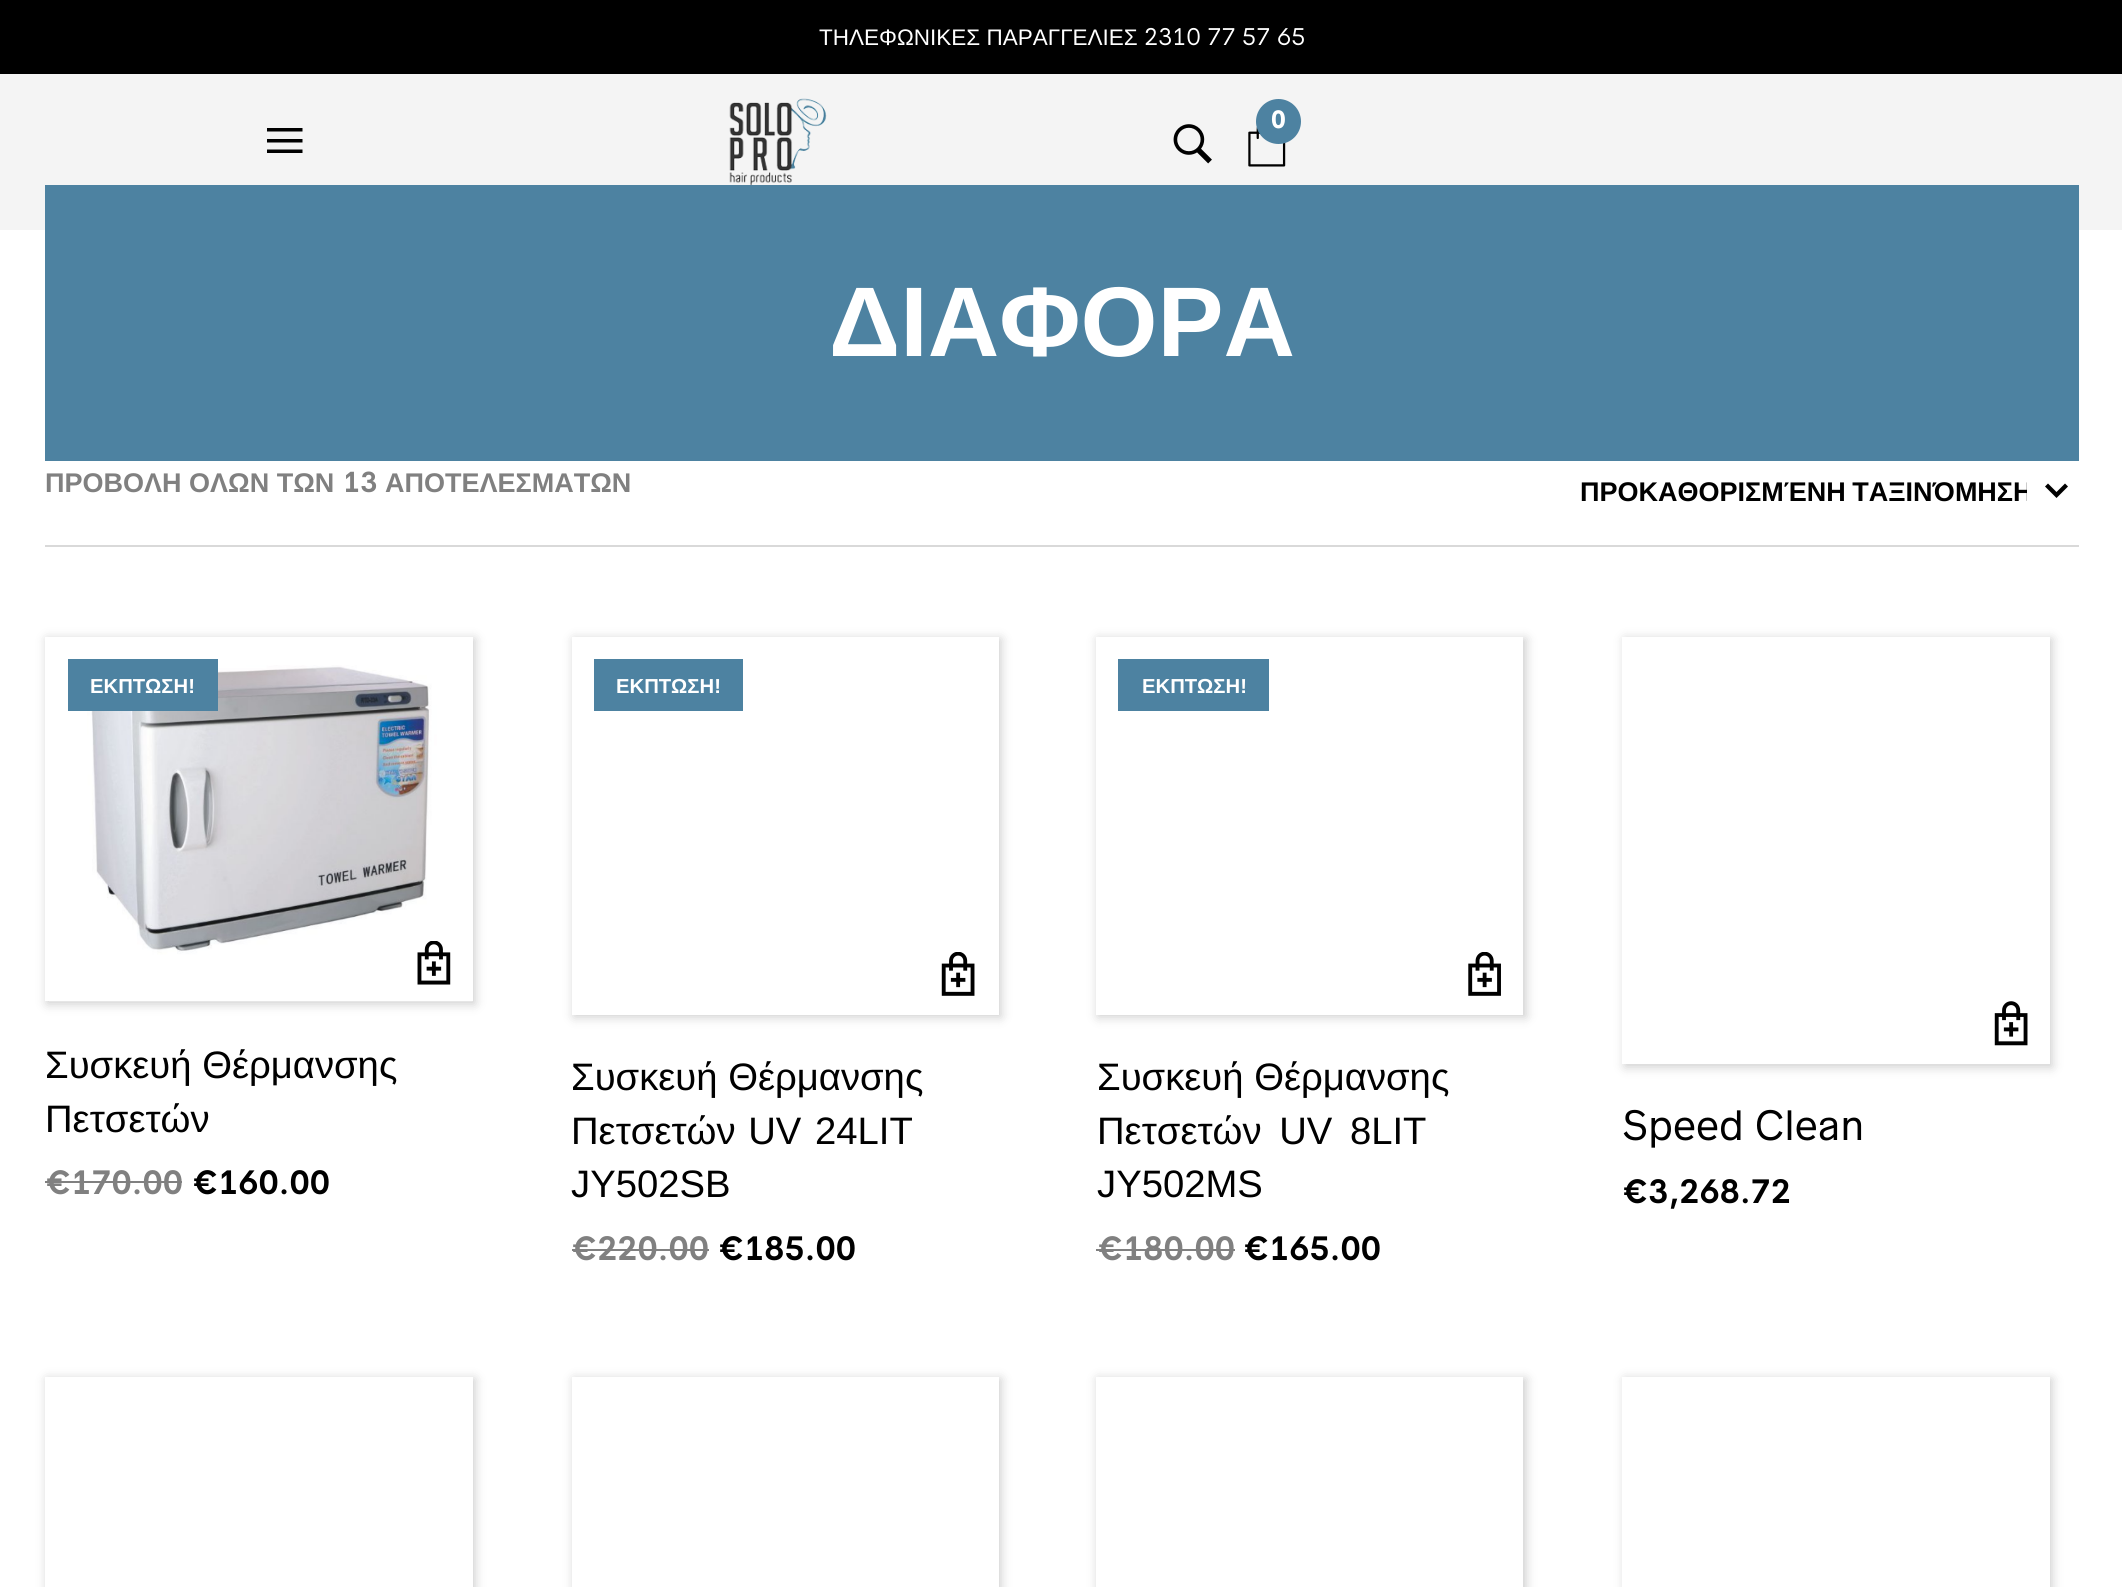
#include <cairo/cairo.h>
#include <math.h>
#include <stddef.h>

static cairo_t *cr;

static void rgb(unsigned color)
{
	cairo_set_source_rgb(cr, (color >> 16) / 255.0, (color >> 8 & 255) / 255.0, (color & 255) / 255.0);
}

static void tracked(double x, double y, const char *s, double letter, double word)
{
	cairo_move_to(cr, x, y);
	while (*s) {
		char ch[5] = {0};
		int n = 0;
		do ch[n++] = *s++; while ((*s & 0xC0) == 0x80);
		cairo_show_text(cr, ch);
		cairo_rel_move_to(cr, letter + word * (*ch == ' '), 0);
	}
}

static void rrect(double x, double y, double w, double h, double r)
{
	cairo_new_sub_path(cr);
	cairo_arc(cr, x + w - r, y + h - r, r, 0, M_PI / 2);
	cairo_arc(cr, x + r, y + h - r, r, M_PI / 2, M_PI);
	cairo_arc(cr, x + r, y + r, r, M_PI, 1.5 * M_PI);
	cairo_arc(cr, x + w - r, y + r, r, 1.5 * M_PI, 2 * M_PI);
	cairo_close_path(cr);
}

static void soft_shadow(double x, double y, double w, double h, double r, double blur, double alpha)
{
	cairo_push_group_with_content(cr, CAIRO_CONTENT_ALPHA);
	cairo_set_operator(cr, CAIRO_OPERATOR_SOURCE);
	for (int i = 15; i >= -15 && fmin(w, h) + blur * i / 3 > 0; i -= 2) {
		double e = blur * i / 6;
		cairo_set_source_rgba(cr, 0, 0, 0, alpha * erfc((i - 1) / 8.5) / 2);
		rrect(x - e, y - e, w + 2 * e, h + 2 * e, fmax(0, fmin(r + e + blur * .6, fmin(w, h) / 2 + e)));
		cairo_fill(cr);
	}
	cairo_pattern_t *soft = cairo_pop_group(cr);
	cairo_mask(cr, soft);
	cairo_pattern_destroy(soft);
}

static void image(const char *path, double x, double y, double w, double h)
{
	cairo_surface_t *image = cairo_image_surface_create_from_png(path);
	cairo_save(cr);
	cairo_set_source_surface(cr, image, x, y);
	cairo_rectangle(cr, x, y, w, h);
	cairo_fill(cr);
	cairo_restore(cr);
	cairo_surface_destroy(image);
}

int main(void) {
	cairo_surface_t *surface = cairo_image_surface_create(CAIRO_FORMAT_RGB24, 2122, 1587);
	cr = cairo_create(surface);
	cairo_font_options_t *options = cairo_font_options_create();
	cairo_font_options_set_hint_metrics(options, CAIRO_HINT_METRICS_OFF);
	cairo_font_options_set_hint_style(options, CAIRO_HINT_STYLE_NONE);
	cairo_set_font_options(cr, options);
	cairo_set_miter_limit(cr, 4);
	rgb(0xffffff);
	cairo_paint(cr);
	rgb(0xf4f4f4);
	cairo_rectangle(cr, 0, 74, 2122, 156);
	cairo_fill(cr);
	rgb(0x000000);
	cairo_rectangle(cr, 0, 0, 2122, 74);
	cairo_fill(cr);
	image("img/1.png", 729, 98, 98, 87);
	image("img/2.png", 1248, 127, 38, 40);
	rgb(0x4d82a1);
	cairo_arc(cr, 1278.5, 121.5, 22.5, 0, 2 * M_PI);
	cairo_fill(cr);
	image("img/3.png", 1173, 124, 39, 40);
	rgb(0x000000);
	cairo_new_path(cr);
	cairo_move_to(cr, 267, 139);
	cairo_line_to(cr, 302.5, 139);
	cairo_line_to(cr, 302.5, 142.5);
	cairo_line_to(cr, 267, 142.5);
	cairo_close_path(cr);
	cairo_move_to(cr, 267, 128);
	cairo_line_to(cr, 302.5, 128);
	cairo_line_to(cr, 302.5, 131.5);
	cairo_line_to(cr, 267, 131.5);
	cairo_close_path(cr);
	cairo_move_to(cr, 267, 149.5);
	cairo_line_to(cr, 302.5, 149.5);
	cairo_line_to(cr, 302.5, 153);
	cairo_line_to(cr, 267, 153);
	cairo_close_path(cr);
	cairo_fill(cr);
	rgb(0x4d82a1);
	cairo_rectangle(cr, 45, 185, 2034, 276);
	cairo_fill(cr);
	rgb(0x000000);
	cairo_new_path(cr);
	cairo_move_to(cr, 2048, 483.5);
	cairo_line_to(cr, 2045, 486.5);
	cairo_line_to(cr, 2056.5, 498);
	cairo_line_to(cr, 2068, 486.5);
	cairo_line_to(cr, 2065, 483.5);
	cairo_line_to(cr, 2056.5, 492);
	cairo_close_path(cr);
	cairo_fill(cr);
	rgb(0xd9d9d9);
	cairo_rectangle(cr, 45, 545, 2034, 2);
	cairo_fill(cr);
	cairo_save(cr);
	cairo_set_fill_rule(cr, CAIRO_FILL_RULE_EVEN_ODD);
	cairo_new_path(cr);
	cairo_move_to(cr, 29, 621);
	cairo_line_to(cr, 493, 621);
	cairo_line_to(cr, 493, 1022);
	cairo_line_to(cr, 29, 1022);
	cairo_close_path(cr);
	cairo_move_to(cr, 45, 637);
	cairo_line_to(cr, 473, 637);
	cairo_line_to(cr, 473, 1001);
	cairo_line_to(cr, 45, 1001);
	cairo_close_path(cr);
	cairo_clip(cr);
	rgb(0x000000);
	soft_shadow(47, 639, 428, 365, 0, 5.5, 0.2);
	cairo_restore(cr);
	image("img/4.png", 49, 638, 424, 364);
	rgb(0xffffff);
	cairo_rectangle(cr, 472, 923, 1, 78);
	cairo_fill(cr);
	image("img/5.png", 417, 941, 34, 44);
	rgb(0x4d82a1);
	cairo_rectangle(cr, 68, 659, 150, 52);
	cairo_fill(cr);
	rgb(0x808080);
	cairo_rectangle(cr, 45, 1181, 137, 2);
	cairo_fill(cr);
	cairo_save(cr);
	cairo_set_fill_rule(cr, CAIRO_FILL_RULE_EVEN_ODD);
	cairo_new_path(cr);
	cairo_move_to(cr, 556, 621);
	cairo_line_to(cr, 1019, 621);
	cairo_line_to(cr, 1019, 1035);
	cairo_line_to(cr, 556, 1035);
	cairo_close_path(cr);
	cairo_move_to(cr, 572, 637);
	cairo_line_to(cr, 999, 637);
	cairo_line_to(cr, 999, 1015);
	cairo_line_to(cr, 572, 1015);
	cairo_close_path(cr);
	cairo_clip(cr);
	rgb(0x000000);
	soft_shadow(574, 639, 427, 378, 0, 5.5, 0.2);
	cairo_restore(cr);
	rgb(0xffffff);
	cairo_rectangle(cr, 920, 1014, 79, 1);
	cairo_fill(cr);
	image("img/6.png", 941, 952, 34, 44);
	rgb(0x4d82a1);
	cairo_rectangle(cr, 594, 659, 149, 52);
	cairo_fill(cr);
	rgb(0x808080);
	cairo_rectangle(cr, 572, 1249, 137, 2);
	cairo_fill(cr);
	cairo_save(cr);
	cairo_set_fill_rule(cr, CAIRO_FILL_RULE_EVEN_ODD);
	cairo_new_path(cr);
	cairo_move_to(cr, 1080, 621);
	cairo_line_to(cr, 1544, 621);
	cairo_line_to(cr, 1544, 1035);
	cairo_line_to(cr, 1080, 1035);
	cairo_close_path(cr);
	cairo_move_to(cr, 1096, 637);
	cairo_line_to(cr, 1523, 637);
	cairo_line_to(cr, 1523, 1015);
	cairo_line_to(cr, 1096, 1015);
	cairo_close_path(cr);
	cairo_clip(cr);
	rgb(0x000000);
	soft_shadow(1098, 639, 428, 378, 0, 5.5, 0.2);
	cairo_restore(cr);
	rgb(0xffffff);
	cairo_rectangle(cr, 1445, 1014, 78, 1);
	cairo_fill(cr);
	image("img/7.png", 1468, 952, 33, 44);
	rgb(0x4d82a1);
	cairo_rectangle(cr, 1118, 659, 151, 52);
	cairo_fill(cr);
	rgb(0x808080);
	cairo_rectangle(cr, 1096, 1249, 139, 2);
	cairo_fill(cr);
	cairo_save(cr);
	cairo_set_fill_rule(cr, CAIRO_FILL_RULE_EVEN_ODD);
	cairo_new_path(cr);
	cairo_move_to(cr, 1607, 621);
	cairo_line_to(cr, 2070, 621);
	cairo_line_to(cr, 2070, 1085);
	cairo_line_to(cr, 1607, 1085);
	cairo_close_path(cr);
	cairo_move_to(cr, 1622, 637);
	cairo_line_to(cr, 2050, 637);
	cairo_line_to(cr, 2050, 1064);
	cairo_line_to(cr, 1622, 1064);
	cairo_close_path(cr);
	cairo_clip(cr);
	rgb(0x000000);
	soft_shadow(1625, 639, 427, 428, 0, 5.5, 0.2);
	cairo_restore(cr);
	rgb(0xffffff);
	cairo_rectangle(cr, 2049, 986, 1, 78);
	cairo_fill(cr);
	image("img/8.png", 1994, 1001, 34, 45);
	cairo_save(cr);
	cairo_set_fill_rule(cr, CAIRO_FILL_RULE_EVEN_ODD);
	cairo_new_path(cr);
	cairo_move_to(cr, 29, 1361);
	cairo_line_to(cr, 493, 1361);
	cairo_line_to(cr, 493, 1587);
	cairo_line_to(cr, 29, 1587);
	cairo_close_path(cr);
	cairo_move_to(cr, 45, 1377);
	cairo_line_to(cr, 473, 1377);
	cairo_line_to(cr, 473, 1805);
	cairo_line_to(cr, 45, 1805);
	cairo_close_path(cr);
	cairo_clip(cr);
	rgb(0x000000);
	soft_shadow(47, 1379, 428, 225, 0, 5.5, 0.2);
	cairo_restore(cr);
	cairo_save(cr);
	cairo_set_fill_rule(cr, CAIRO_FILL_RULE_EVEN_ODD);
	cairo_new_path(cr);
	cairo_move_to(cr, 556, 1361);
	cairo_line_to(cr, 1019, 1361);
	cairo_line_to(cr, 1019, 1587);
	cairo_line_to(cr, 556, 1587);
	cairo_close_path(cr);
	cairo_move_to(cr, 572, 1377);
	cairo_line_to(cr, 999, 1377);
	cairo_line_to(cr, 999, 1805);
	cairo_line_to(cr, 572, 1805);
	cairo_close_path(cr);
	cairo_clip(cr);
	rgb(0x000000);
	soft_shadow(574, 1379, 427, 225, 0, 5.5, 0.2);
	cairo_restore(cr);
	cairo_save(cr);
	cairo_set_fill_rule(cr, CAIRO_FILL_RULE_EVEN_ODD);
	cairo_new_path(cr);
	cairo_move_to(cr, 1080, 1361);
	cairo_line_to(cr, 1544, 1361);
	cairo_line_to(cr, 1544, 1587);
	cairo_line_to(cr, 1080, 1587);
	cairo_close_path(cr);
	cairo_move_to(cr, 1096, 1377);
	cairo_line_to(cr, 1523, 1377);
	cairo_line_to(cr, 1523, 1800);
	cairo_line_to(cr, 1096, 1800);
	cairo_close_path(cr);
	cairo_clip(cr);
	rgb(0x000000);
	soft_shadow(1098, 1379, 428, 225, 0, 5.5, 0.2);
	cairo_restore(cr);
	cairo_save(cr);
	cairo_set_fill_rule(cr, CAIRO_FILL_RULE_EVEN_ODD);
	cairo_new_path(cr);
	cairo_move_to(cr, 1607, 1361);
	cairo_line_to(cr, 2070, 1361);
	cairo_line_to(cr, 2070, 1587);
	cairo_line_to(cr, 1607, 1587);
	cairo_close_path(cr);
	cairo_move_to(cr, 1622, 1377);
	cairo_line_to(cr, 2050, 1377);
	cairo_line_to(cr, 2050, 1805);
	cairo_line_to(cr, 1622, 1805);
	cairo_close_path(cr);
	cairo_clip(cr);
	rgb(0x000000);
	soft_shadow(1625, 1379, 427, 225, 0, 5.5, 0.2);
	cairo_restore(cr);
	cairo_select_font_face(cr, "Liberation Sans", CAIRO_FONT_SLANT_NORMAL, CAIRO_FONT_WEIGHT_NORMAL);
	cairo_set_font_size(cr, 22.5);
	cairo_move_to(cr, 819, 45);
	cairo_show_text(cr, "ΤΗΛΕΦΩΝΙΚΕΣ ΠΑΡΑΓΓΕΛΙΕΣ");
	cairo_select_font_face(cr, "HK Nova", CAIRO_FONT_SLANT_NORMAL, CAIRO_FONT_WEIGHT_NORMAL);
	cairo_move_to(cr, 1144, 45);
	cairo_show_text(cr, "2310 77 57 65");
	cairo_select_font_face(cr, "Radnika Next", CAIRO_FONT_SLANT_NORMAL, CAIRO_FONT_WEIGHT_BOLD);
	cairo_move_to(cr, 1271, 128);
	cairo_show_text(cr, "0");
	cairo_select_font_face(cr, "Liberation Sans", CAIRO_FONT_SLANT_NORMAL, CAIRO_FONT_WEIGHT_BOLD);
	cairo_set_font_size(cr, 99);
	cairo_move_to(cr, 829, 356);
	cairo_show_text(cr, "ΔΙΑΦΟΡΑ");
	cairo_set_font_size(cr, 27);
	rgb(0x808080);
	cairo_move_to(cr, 45, 492);
	cairo_show_text(cr, "ΠΡΟΒΟΛΗ ΟΛΩΝ ΤΩΝ");
	cairo_select_font_face(cr, "HK Nova", CAIRO_FONT_SLANT_NORMAL, CAIRO_FONT_WEIGHT_BOLD);
	cairo_move_to(cr, 343, 492);
	cairo_show_text(cr, "13");
	cairo_select_font_face(cr, "Liberation Sans", CAIRO_FONT_SLANT_NORMAL, CAIRO_FONT_WEIGHT_BOLD);
	cairo_move_to(cr, 385, 492);
	cairo_show_text(cr, "ΑΠΟΤΕΛΕΣΜΑΤΩΝ");
	cairo_save(cr);
	cairo_rectangle(cr, 1251, 475, 776, 36);
	cairo_clip(cr);
	rgb(0x000000);
	tracked(1580, 501, "ΠΡΟΚΑΘΟΡΙΣΜΈΝΗ ΤΑΞΙΝΌΜΗΣΗ", 0, -1);
	cairo_restore(cr);
	cairo_set_font_size(cr, 20.25);
	rgb(0xffffff);
	cairo_move_to(cr, 90, 693);
	cairo_show_text(cr, "ΕΚΠΤΩΣΗ!");
	cairo_select_font_face(cr, "Liberation Sans", CAIRO_FONT_SLANT_NORMAL, CAIRO_FONT_WEIGHT_NORMAL);
	cairo_set_font_size(cr, 38.25);
	rgb(0x000000);
	cairo_move_to(cr, 45, 1078);
	cairo_show_text(cr, "Συσκευή Θέρμανσης");
	cairo_move_to(cr, 45, 1132);
	cairo_show_text(cr, "Πετσετών");
	cairo_select_font_face(cr, "HK Nova", CAIRO_FONT_SLANT_NORMAL, CAIRO_FONT_WEIGHT_BOLD);
	cairo_set_font_size(cr, 31.5);
	rgb(0x808080);
	cairo_move_to(cr, 45, 1194);
	cairo_show_text(cr, "€170.00");
	rgb(0x000000);
	cairo_move_to(cr, 192, 1194);
	cairo_show_text(cr, "€160.00");
	cairo_select_font_face(cr, "Liberation Sans", CAIRO_FONT_SLANT_NORMAL, CAIRO_FONT_WEIGHT_BOLD);
	cairo_set_font_size(cr, 20.25);
	rgb(0xffffff);
	cairo_move_to(cr, 616, 693);
	cairo_show_text(cr, "ΕΚΠΤΩΣΗ!");
	cairo_select_font_face(cr, "Liberation Sans", CAIRO_FONT_SLANT_NORMAL, CAIRO_FONT_WEIGHT_NORMAL);
	cairo_set_font_size(cr, 38.25);
	rgb(0x000000);
	cairo_move_to(cr, 571, 1090);
	cairo_show_text(cr, "Συσκευή Θέρμανσης");
	tracked(571, 1144, "Πετσετών UV", 0, 2);
	cairo_move_to(cr, 815, 1144);
	cairo_show_text(cr, "24LIT");
	cairo_move_to(cr, 571, 1197);
	cairo_show_text(cr, "JY502SB");
	cairo_select_font_face(cr, "HK Nova", CAIRO_FONT_SLANT_NORMAL, CAIRO_FONT_WEIGHT_BOLD);
	cairo_set_font_size(cr, 31.5);
	rgb(0x808080);
	cairo_move_to(cr, 571, 1260);
	cairo_show_text(cr, "€220.00");
	rgb(0x000000);
	cairo_move_to(cr, 718, 1260);
	cairo_show_text(cr, "€185.00");
	cairo_select_font_face(cr, "Liberation Sans", CAIRO_FONT_SLANT_NORMAL, CAIRO_FONT_WEIGHT_BOLD);
	cairo_set_font_size(cr, 20.25);
	rgb(0xffffff);
	cairo_move_to(cr, 1142, 693);
	cairo_show_text(cr, "ΕΚΠΤΩΣΗ!");
	cairo_select_font_face(cr, "Liberation Sans", CAIRO_FONT_SLANT_NORMAL, CAIRO_FONT_WEIGHT_NORMAL);
	cairo_set_font_size(cr, 38.25);
	rgb(0x000000);
	cairo_move_to(cr, 1097, 1090);
	cairo_show_text(cr, "Συσκευή Θέρμανσης");
	tracked(1097, 1144, "Πετσετών UV 8LIT", 0, 7);
	cairo_move_to(cr, 1097, 1197);
	cairo_show_text(cr, "JY502MS");
	cairo_select_font_face(cr, "HK Nova", CAIRO_FONT_SLANT_NORMAL, CAIRO_FONT_WEIGHT_BOLD);
	cairo_set_font_size(cr, 31.5);
	rgb(0x808080);
	cairo_move_to(cr, 1097, 1260);
	cairo_show_text(cr, "€180.00");
	rgb(0x000000);
	cairo_move_to(cr, 1243, 1260);
	cairo_show_text(cr, "€165.00");
	cairo_select_font_face(cr, "Radnika Next", CAIRO_FONT_SLANT_NORMAL, CAIRO_FONT_WEIGHT_NORMAL);
	cairo_set_font_size(cr, 38.25);
	cairo_move_to(cr, 1622, 1140);
	cairo_show_text(cr, "Speed Clean");
	cairo_select_font_face(cr, "HK Nova", CAIRO_FONT_SLANT_NORMAL, CAIRO_FONT_WEIGHT_BOLD);
	cairo_set_font_size(cr, 31.5);
	cairo_move_to(cr, 1622, 1203);
	cairo_show_text(cr, "€3,268.72");
	cairo_surface_write_to_png(surface, "page.png");
	cairo_font_options_destroy(options);
	cairo_destroy(cr);
	cairo_surface_destroy(surface);
	return 0;
}
